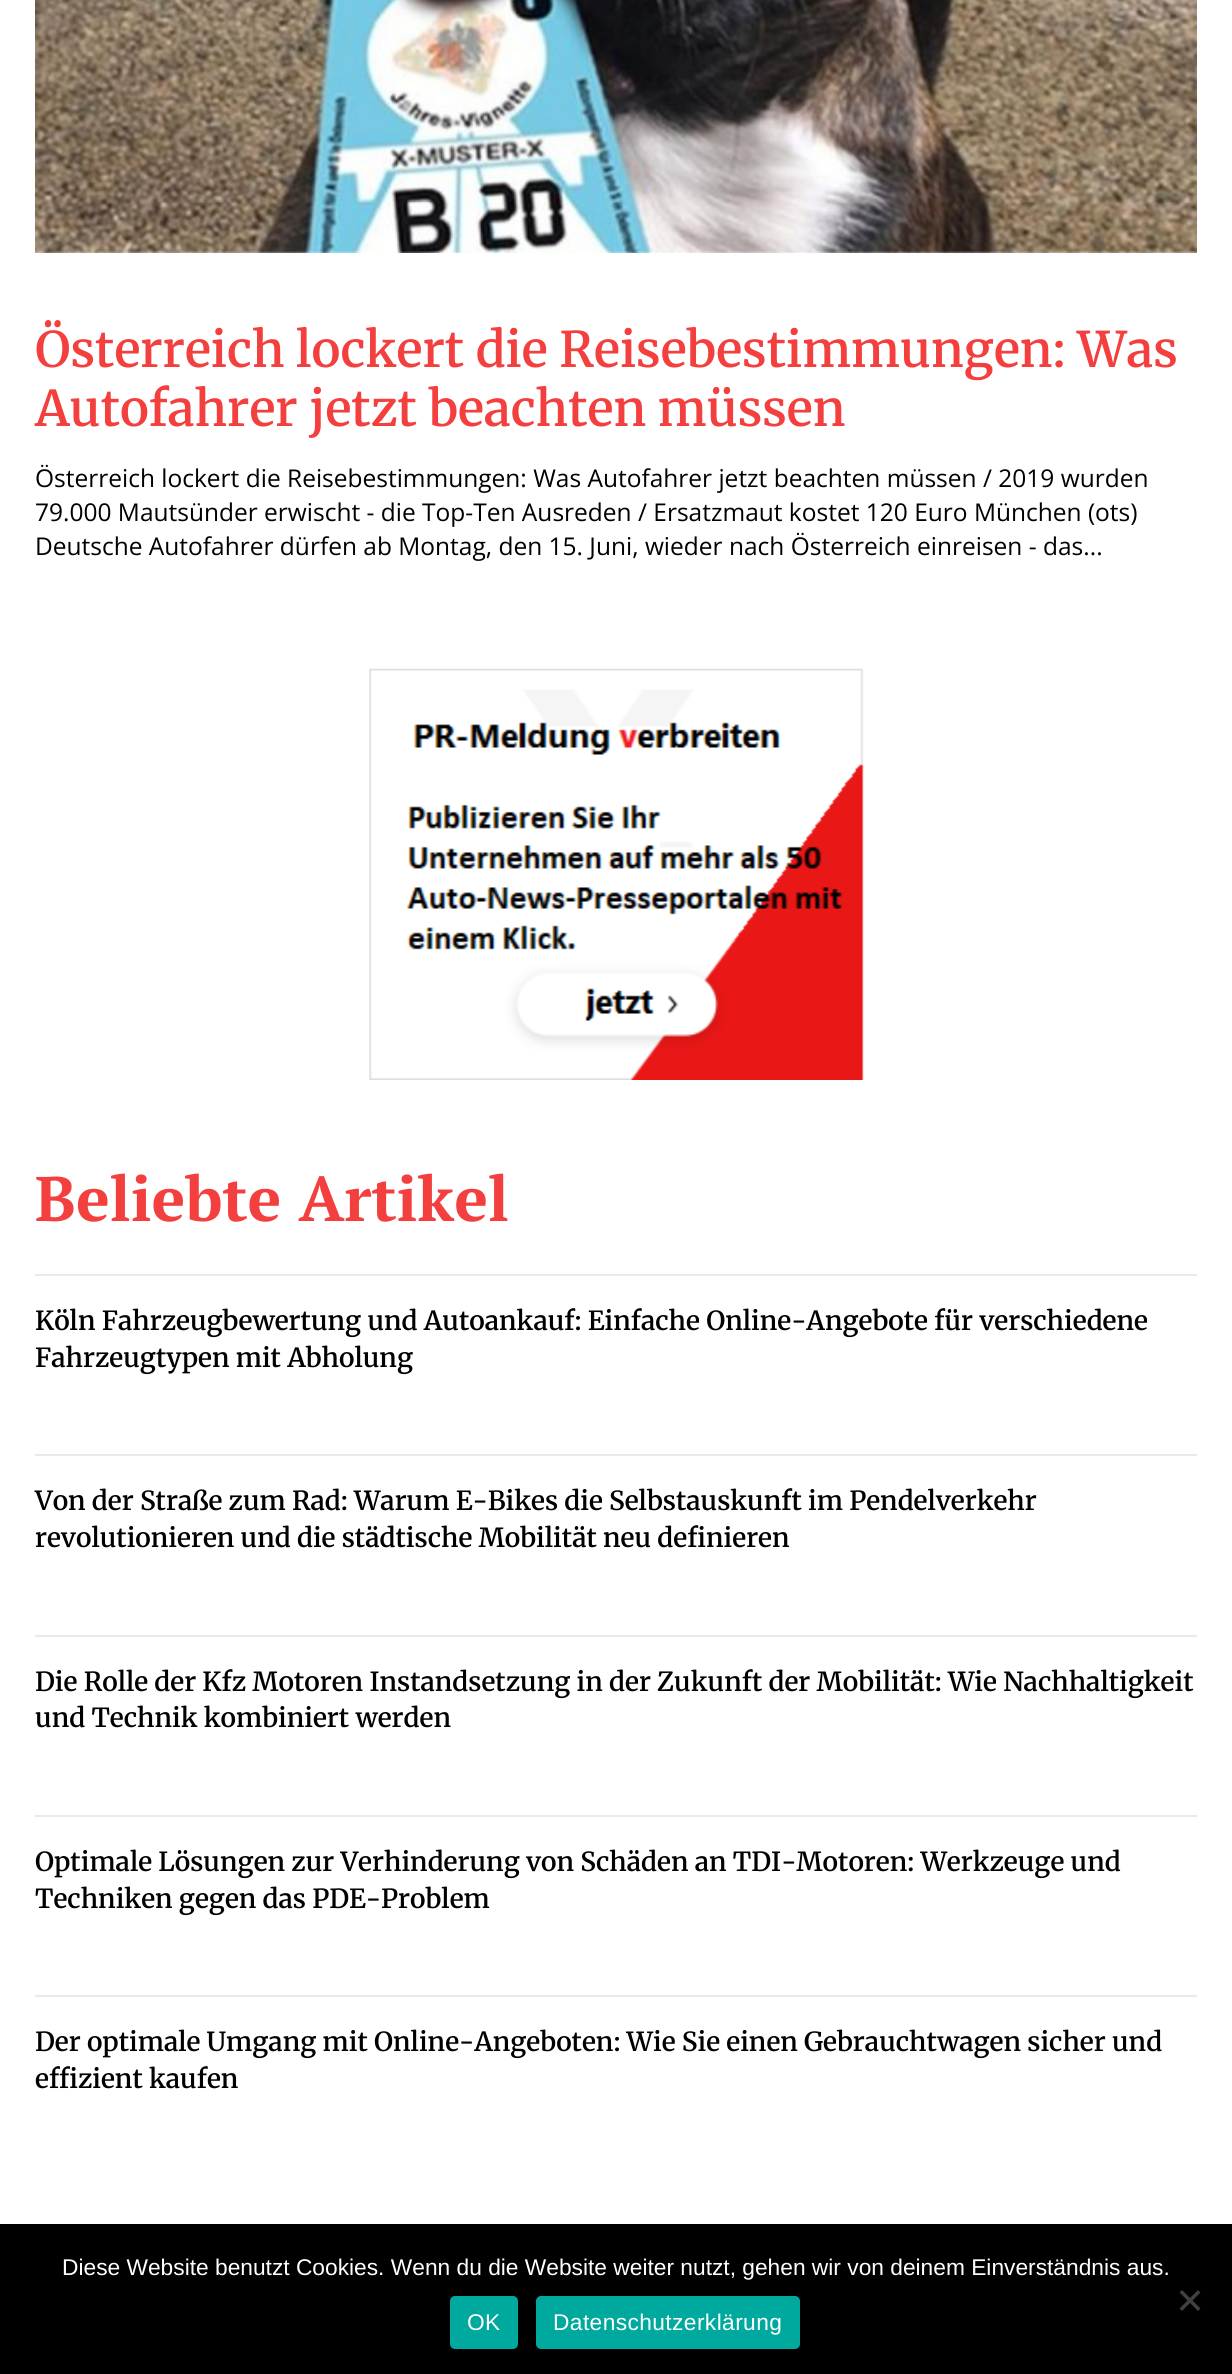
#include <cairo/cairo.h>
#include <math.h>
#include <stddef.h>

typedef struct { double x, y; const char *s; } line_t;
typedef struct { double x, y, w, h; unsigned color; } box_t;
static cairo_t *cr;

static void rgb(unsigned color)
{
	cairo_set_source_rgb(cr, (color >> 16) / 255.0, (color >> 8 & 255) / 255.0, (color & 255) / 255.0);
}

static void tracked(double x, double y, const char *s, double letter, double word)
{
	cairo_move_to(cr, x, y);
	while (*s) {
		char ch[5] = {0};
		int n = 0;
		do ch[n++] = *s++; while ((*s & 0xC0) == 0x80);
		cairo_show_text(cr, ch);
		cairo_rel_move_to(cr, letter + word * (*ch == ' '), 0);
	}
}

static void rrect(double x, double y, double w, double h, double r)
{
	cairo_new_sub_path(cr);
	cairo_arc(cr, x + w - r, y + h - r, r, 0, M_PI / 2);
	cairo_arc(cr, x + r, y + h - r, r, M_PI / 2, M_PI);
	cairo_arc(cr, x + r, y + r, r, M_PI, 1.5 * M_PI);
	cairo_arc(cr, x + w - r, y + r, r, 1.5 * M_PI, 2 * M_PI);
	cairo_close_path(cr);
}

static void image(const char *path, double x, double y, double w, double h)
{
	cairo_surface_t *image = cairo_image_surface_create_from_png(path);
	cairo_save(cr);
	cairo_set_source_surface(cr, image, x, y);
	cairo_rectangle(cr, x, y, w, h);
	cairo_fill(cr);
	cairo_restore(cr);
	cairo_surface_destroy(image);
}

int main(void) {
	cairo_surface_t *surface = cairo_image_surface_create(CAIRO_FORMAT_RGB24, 1232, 2374);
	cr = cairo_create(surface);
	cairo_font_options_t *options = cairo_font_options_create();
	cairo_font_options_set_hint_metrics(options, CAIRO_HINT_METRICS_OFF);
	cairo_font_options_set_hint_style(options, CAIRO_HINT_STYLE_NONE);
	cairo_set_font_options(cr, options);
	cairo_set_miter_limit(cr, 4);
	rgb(0xffffff);
	cairo_paint(cr);
	image("img/1.png", 35, 0, 1162, 253);
	image("img/2.png", 369, 668, 495, 412);
	{
		static const box_t items[] = {
			{35, 1274, 1162, 2, 0xeaeaea},
			{35, 1454, 1162, 2, 0xeaeaea},
			{35, 1635, 1162, 2, 0xeaeaea},
			{35, 1815, 1162, 2, 0xeaeaea},
			{35, 1995, 1162, 2, 0xeaeaea},
			{0, 2224, 1232, 150, 0x000000},
		};
		for (size_t i = 0; i < sizeof items / sizeof *items; i++) {
			rgb(items[i].color);
			cairo_rectangle(cr, items[i].x, items[i].y, items[i].w, items[i].h);
			cairo_fill(cr);
		}
	}
	rgb(0x404040);
	cairo_new_path(cr);
	cairo_move_to(cr, 1198, 2290);
	cairo_line_to(cr, 1200.5, 2292.5);
	cairo_line_to(cr, 1182, 2311);
	cairo_line_to(cr, 1179.5, 2308.5);
	cairo_close_path(cr);
	cairo_fill(cr);
	cairo_new_path(cr);
	cairo_move_to(cr, 1179.5, 2292.5);
	cairo_line_to(cr, 1182, 2290);
	cairo_line_to(cr, 1200.5, 2308.5);
	cairo_line_to(cr, 1198, 2311);
	cairo_close_path(cr);
	cairo_fill(cr);
	rgb(0x00a99d);
	rrect(450, 2296, 68, 53, 5);
	cairo_fill(cr);
	rrect(536, 2296, 264, 53, 5);
	cairo_fill(cr);
	cairo_select_font_face(cr, "Merriweather SemiBold", CAIRO_FONT_SLANT_NORMAL, CAIRO_FONT_WEIGHT_NORMAL);
	cairo_set_font_size(cr, 49);
	rgb(0xf43f3f);
	cairo_move_to(cr, 35, 367);
	cairo_show_text(cr, "Österreich lockert die Reisebestimmungen: Was");
	cairo_move_to(cr, 35, 426);
	cairo_show_text(cr, "Autofahrer jetzt beachten müssen");
	cairo_select_font_face(cr, "Open Sans", CAIRO_FONT_SLANT_NORMAL, CAIRO_FONT_WEIGHT_NORMAL);
	cairo_set_font_size(cr, 24.5);
	rgb(0x000000);
	{
		static const line_t items[] = {
			{35, 487, "Österreich lockert die Reisebestimmungen: Was Autofahrer jetzt beachten müssen / 2019 wurden"},
			{35, 521, "79.000 Mautsünder erwischt - die Top-Ten Ausreden / Ersatzmaut kostet 120 Euro München (ots)"},
			{35, 555, "Deutsche Autofahrer dürfen ab Montag, den 15. Juni, wieder nach Österreich einreisen - das..."},
		};
		for (size_t i = 0; i < sizeof items / sizeof *items; i++) {
			cairo_move_to(cr, items[i].x, items[i].y);
			cairo_show_text(cr, items[i].s);
		}
	}
	cairo_select_font_face(cr, "PT Serif", CAIRO_FONT_SLANT_NORMAL, CAIRO_FONT_WEIGHT_BOLD);
	cairo_set_font_size(cr, 63);
	rgb(0xf43f3f);
	cairo_move_to(cr, 35, 1221);
	cairo_show_text(cr, "Beliebte Artikel");
	cairo_select_font_face(cr, "Merriweather SemiBold", CAIRO_FONT_SLANT_NORMAL, CAIRO_FONT_WEIGHT_NORMAL);
	cairo_set_font_size(cr, 26.25);
	rgb(0x000000);
	{
		static const line_t items[] = {
			{35, 1330, "Köln Fahrzeugbewertung und Autoankauf: Einfache Online-Angebote für verschiedene"},
			{35, 1367, "Fahrzeugtypen mit Abholung"},
			{35, 1510, "Von der Straße zum Rad: Warum E-Bikes die Selbstauskunft im Pendelverkehr"},
			{35, 1547, "revolutionieren und die städtische Mobilität neu definieren"},
			{35, 1691, "Die Rolle der Kfz Motoren Instandsetzung in der Zukunft der Mobilität: Wie Nachhaltigkeit"},
			{35, 1727, "und Technik kombiniert werden"},
			{35, 1871, "Optimale Lösungen zur Verhinderung von Schäden an TDI-Motoren: Werkzeuge und"},
			{35, 1908, "Techniken gegen das PDE-Problem"},
			{35, 2051, "Der optimale Umgang mit Online-Angeboten: Wie Sie einen Gebrauchtwagen sicher und"},
			{35, 2088, "effizient kaufen"},
		};
		for (size_t i = 0; i < sizeof items / sizeof *items; i++) {
			cairo_move_to(cr, items[i].x, items[i].y);
			cairo_show_text(cr, items[i].s);
		}
	}
	cairo_select_font_face(cr, "Liberation Sans", CAIRO_FONT_SLANT_NORMAL, CAIRO_FONT_WEIGHT_NORMAL);
	cairo_set_font_size(cr, 22.75);
	rgb(0xffffff);
	cairo_move_to(cr, 62, 2275);
	cairo_show_text(cr, "Diese Website benutzt Cookies. Wenn du die Website weiter nutzt, gehen wir von deinem Einverständnis aus.");
	tracked(467, 2330, "OK", 0.4, 0);
	tracked(553, 2330, "Datenschutzerklärung", 0.4, 0);
	cairo_surface_write_to_png(surface, "page.png");
	cairo_font_options_destroy(options);
	cairo_destroy(cr);
	cairo_surface_destroy(surface);
	return 0;
}
